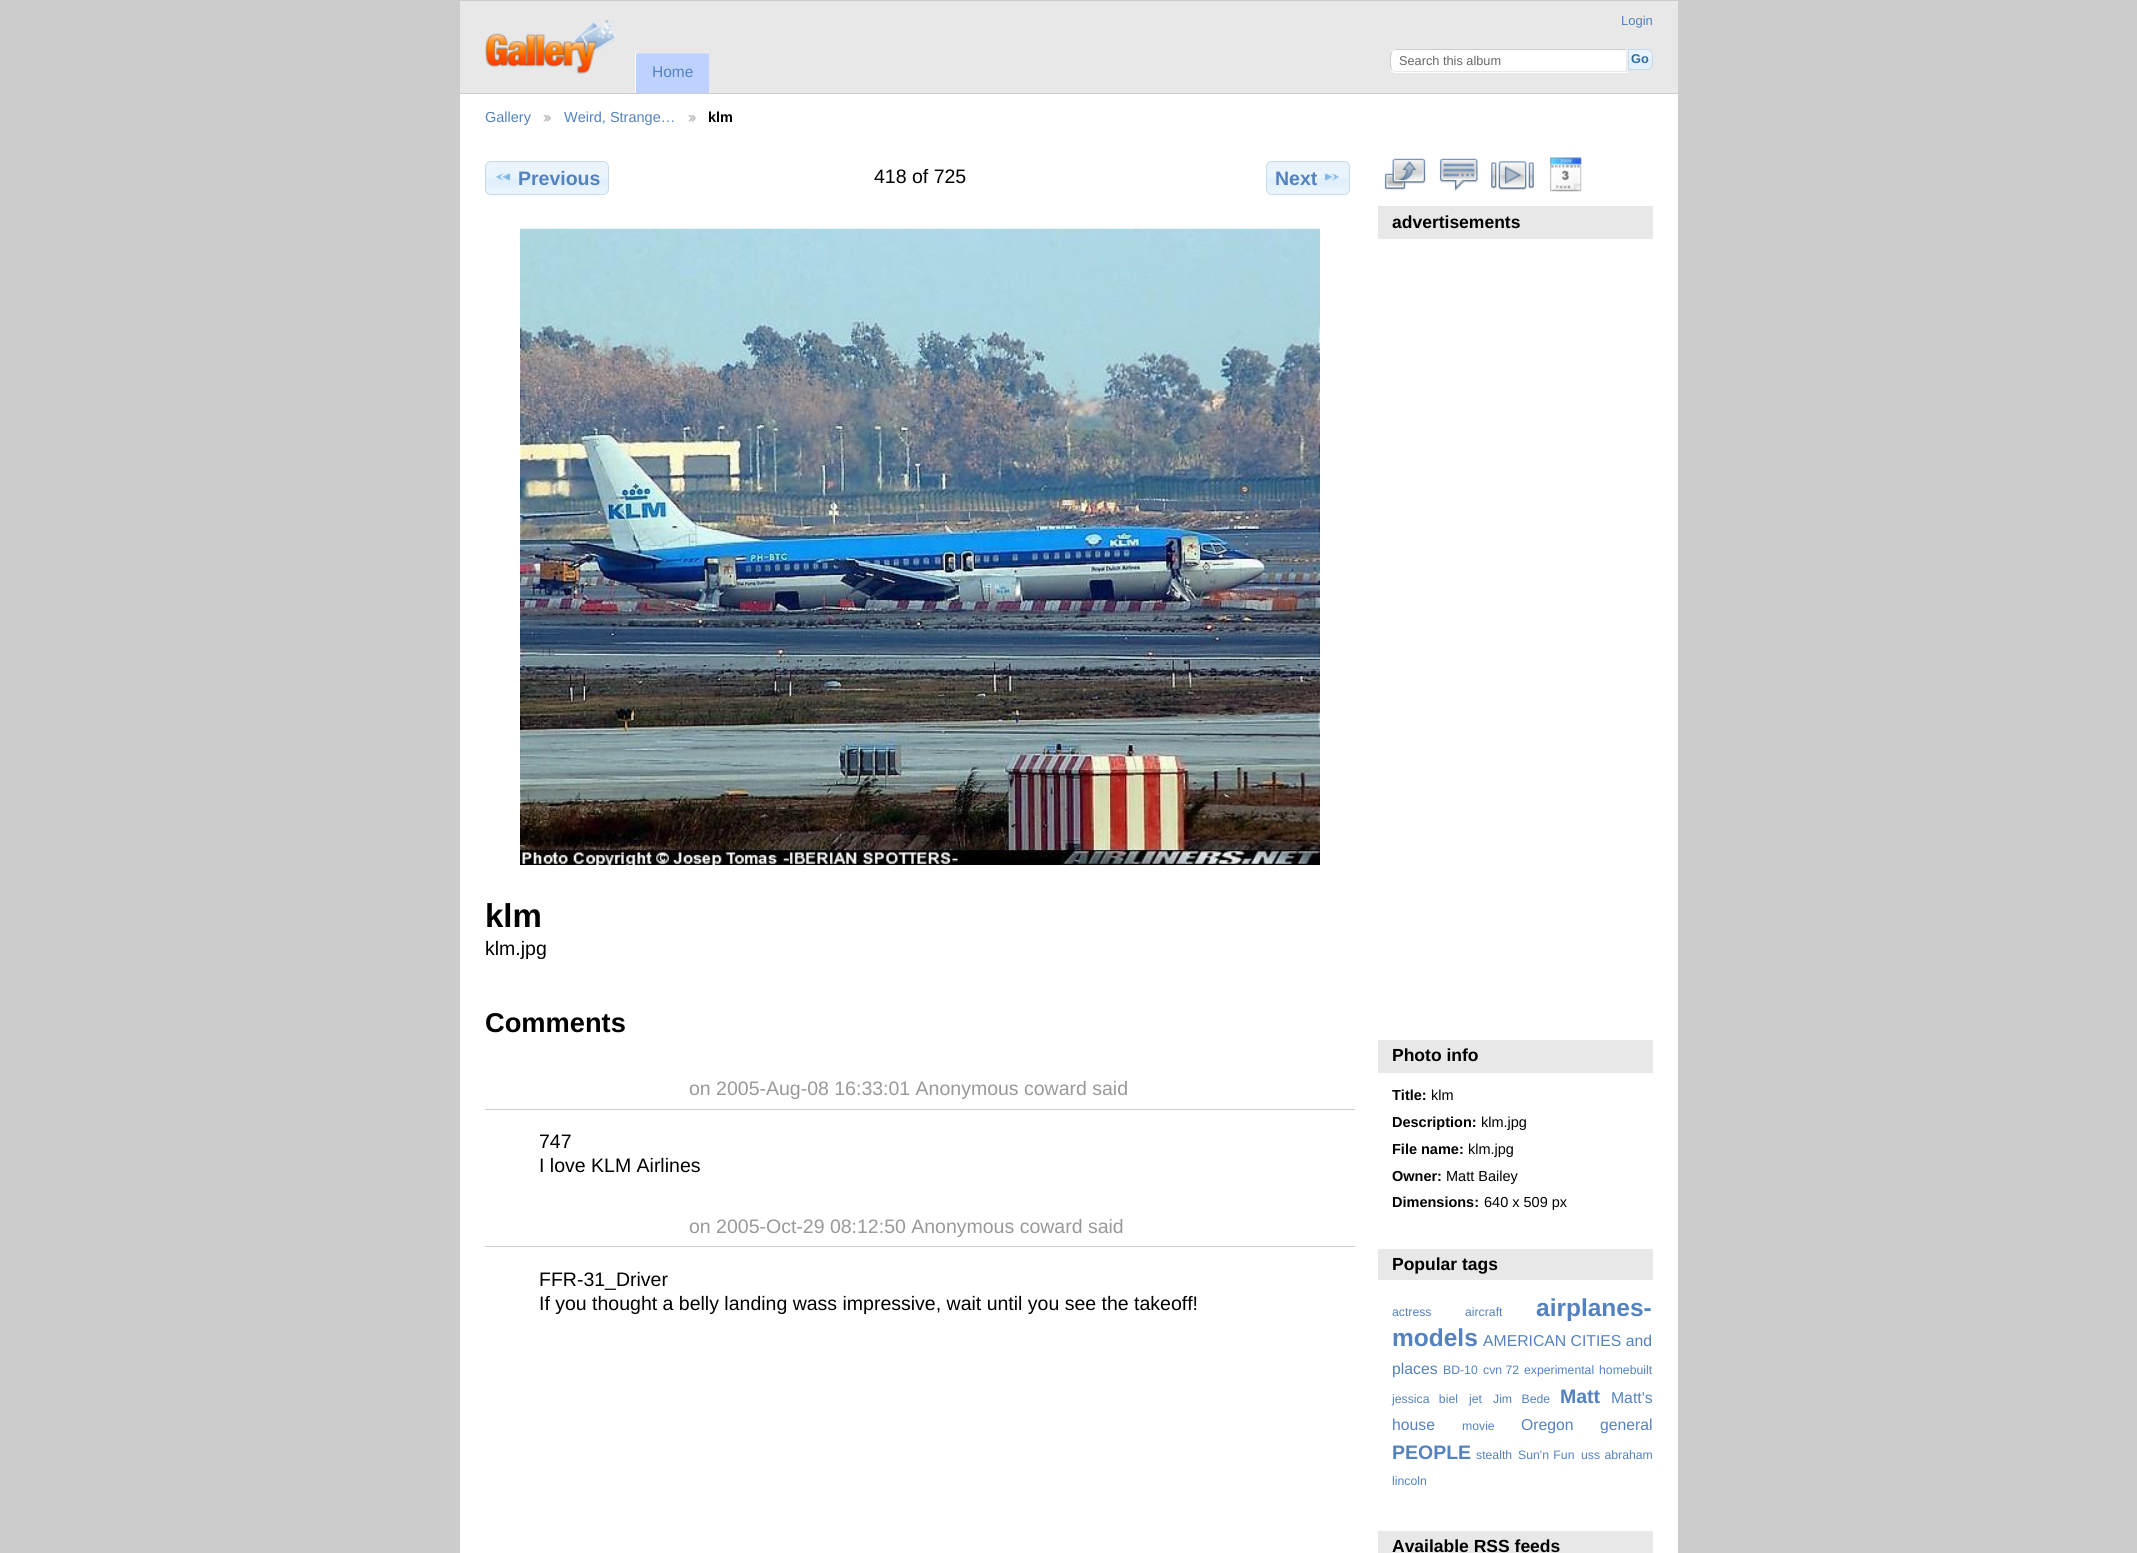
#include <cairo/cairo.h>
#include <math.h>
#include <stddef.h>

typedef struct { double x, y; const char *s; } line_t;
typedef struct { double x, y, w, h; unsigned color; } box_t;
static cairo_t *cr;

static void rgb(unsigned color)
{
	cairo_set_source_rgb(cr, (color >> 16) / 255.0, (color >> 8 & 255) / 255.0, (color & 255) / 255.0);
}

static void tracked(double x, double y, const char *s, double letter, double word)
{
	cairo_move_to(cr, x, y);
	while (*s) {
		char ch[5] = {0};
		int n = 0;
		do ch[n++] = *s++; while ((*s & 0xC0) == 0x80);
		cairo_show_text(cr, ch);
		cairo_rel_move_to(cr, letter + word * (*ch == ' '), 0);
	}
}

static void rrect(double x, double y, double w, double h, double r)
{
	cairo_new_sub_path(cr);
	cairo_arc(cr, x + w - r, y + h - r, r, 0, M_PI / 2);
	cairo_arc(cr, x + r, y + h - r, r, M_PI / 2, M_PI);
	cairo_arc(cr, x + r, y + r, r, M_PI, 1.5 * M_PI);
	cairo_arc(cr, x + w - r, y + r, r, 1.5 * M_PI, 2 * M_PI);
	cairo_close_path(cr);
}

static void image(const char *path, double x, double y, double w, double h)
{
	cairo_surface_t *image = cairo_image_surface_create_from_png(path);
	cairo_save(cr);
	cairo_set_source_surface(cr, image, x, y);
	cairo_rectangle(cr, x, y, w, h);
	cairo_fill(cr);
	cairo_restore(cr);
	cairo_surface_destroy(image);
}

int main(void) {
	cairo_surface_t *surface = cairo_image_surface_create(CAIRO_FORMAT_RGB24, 2137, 1553);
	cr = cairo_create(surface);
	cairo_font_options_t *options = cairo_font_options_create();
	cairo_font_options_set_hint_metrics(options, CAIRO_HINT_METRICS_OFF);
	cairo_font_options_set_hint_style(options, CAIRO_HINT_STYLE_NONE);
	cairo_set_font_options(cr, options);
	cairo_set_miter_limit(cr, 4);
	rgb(0xcccccc);
	cairo_paint(cr);
	rgb(0xffffff);
	cairo_rectangle(cr, 460, 94, 1218, 1459);
	cairo_fill(cr);
	rgb(0xe8e8e8);
	cairo_rectangle(cr, 460, 1, 1218, 92);
	cairo_fill(cr);
	image("img/1.png", 485, 19, 132, 55);
	rgb(0xffffff);
	cairo_new_path(cr);
	cairo_move_to(cr, 1396, 49);
	cairo_line_to(cr, 1628, 49);
	cairo_line_to(cr, 1628, 73);
	cairo_line_to(cr, 1396, 73);
	cairo_curve_to(cr, 1392.5, 73, 1390, 70.5, 1390, 67);
	cairo_line_to(cr, 1390, 55);
	cairo_curve_to(cr, 1390, 51.5, 1392.5, 49, 1396, 49);
	cairo_close_path(cr);
	cairo_fill(cr);
	rgb(0xcccccc);
	cairo_new_path(cr);
	cairo_move_to(cr, 1396, 49);
	cairo_curve_to(cr, 1395, 49, 1393, 50, 1392, 51);
	cairo_line_to(cr, 1393, 51);
	cairo_curve_to(cr, 1393, 50, 1394, 50, 1396, 50);
	cairo_line_to(cr, 1626, 50);
	cairo_line_to(cr, 1627, 49);
	cairo_close_path(cr);
	cairo_fill(cr);
	rgb(0xe8e8e8);
	cairo_new_path(cr);
	cairo_move_to(cr, 1627.5, 72);
	cairo_line_to(cr, 1627, 72);
	cairo_line_to(cr, 1626, 71);
	cairo_line_to(cr, 1626, 50);
	cairo_line_to(cr, 1627, 49);
	cairo_line_to(cr, 1627.5, 49);
	cairo_close_path(cr);
	cairo_fill(cr);
	cairo_new_path(cr);
	cairo_move_to(cr, 1627, 72);
	cairo_line_to(cr, 1395, 72);
	cairo_line_to(cr, 1392, 71);
	cairo_line_to(cr, 1393, 70);
	cairo_line_to(cr, 1395, 71);
	cairo_line_to(cr, 1626, 71);
	cairo_close_path(cr);
	cairo_fill(cr);
	rgb(0xcccccc);
	cairo_new_path(cr);
	cairo_move_to(cr, 1390, 55);
	cairo_line_to(cr, 1390, 66);
	cairo_curve_to(cr, 1390, 68, 1391, 69.5, 1392, 70.5);
	cairo_line_to(cr, 1392.5, 70);
	cairo_line_to(cr, 1391.5, 67.5);
	cairo_curve_to(cr, 1390.5, 65.5, 1391, 56, 1391.5, 54);
	cairo_line_to(cr, 1392.5, 51.5);
	cairo_line_to(cr, 1392, 51);
	cairo_curve_to(cr, 1391, 52, 1390, 53.5, 1390, 55);
	cairo_close_path(cr);
	cairo_fill(cr);
	image("img/2.png", 1627, 49, 25, 21);
	cairo_new_path(cr);
	cairo_move_to(cr, 1628.5, 49.5);
	cairo_line_to(cr, 1647, 49.5);
	cairo_curve_to(cr, 1650, 49.5, 1652.5, 52, 1652.5, 55);
	cairo_line_to(cr, 1652.5, 64);
	cairo_curve_to(cr, 1652.5, 67, 1650, 69.5, 1647, 69.5);
	cairo_line_to(cr, 1628.5, 69.5);
	cairo_close_path(cr);
	rgb(0xc5dbec);
	cairo_set_line_width(cr, 1);
	cairo_stroke(cr);
	{
		static const box_t items[] = {
			{636, 54, 73, 39, 0xbdd2ff},
			{635, 53, 74, 1, 0xcfdeff},
			{635, 53, 1, 40, 0xffffff},
		};
		for (size_t i = 0; i < sizeof items / sizeof *items; i++) {
			rgb(items[i].color);
			cairo_rectangle(cr, items[i].x, items[i].y, items[i].w, items[i].h);
			cairo_fill(cr);
		}
	}
	image("img/3.png", 543, 115, 9, 7);
	image("img/3.png", 688, 115, 9, 7);
	image("img/4.png", 485, 161, 124, 34);
	rrect(485.5, 161.5, 123, 33, 5.5);
	rgb(0xc5dbec);
	cairo_stroke(cr);
	image("img/5.png", 496, 173, 15, 8);
	image("img/6.png", 1266, 161, 84, 34);
	rrect(1266.5, 161.5, 83, 33, 5.5);
	cairo_stroke(cr);
	image("img/7.png", 1324, 173, 15, 8);
	image("img/8.png", 520, 228, 800, 637);
	rgb(0xcccccc);
	cairo_rectangle(cr, 485, 1109, 870, 1);
	cairo_fill(cr);
	cairo_rectangle(cr, 485, 1246, 870, 1);
	cairo_fill(cr);
	image("img/9.png", 1384, 158, 42, 32);
	image("img/10.png", 1439, 158, 39, 33);
	image("img/11.png", 1491, 161, 43, 29);
	image("img/12.png", 1549, 157, 33, 35);
	{
		static const box_t items[] = {
			{1378, 206, 275, 33, 0xe8e8e8},
			{1378, 1040, 275, 33, 0xe8e8e8},
			{1378, 1249, 275, 31, 0xe8e8e8},
			{1378, 1531, 275, 22, 0xe8e8e8},
		};
		for (size_t i = 0; i < sizeof items / sizeof *items; i++) {
			rgb(items[i].color);
			cairo_rectangle(cr, items[i].x, items[i].y, items[i].w, items[i].h);
			cairo_fill(cr);
		}
	}
	cairo_select_font_face(cr, "Liberation Sans", CAIRO_FONT_SLANT_NORMAL, CAIRO_FONT_WEIGHT_NORMAL);
	cairo_set_font_size(cr, 13);
	rgb(0x5382bf);
	cairo_move_to(cr, 1621, 25);
	cairo_show_text(cr, "Login");
	cairo_set_font_size(cr, 12.75);
	rgb(0x666666);
	cairo_move_to(cr, 1399, 65);
	cairo_show_text(cr, "Search this album");
	cairo_select_font_face(cr, "Liberation Sans", CAIRO_FONT_SLANT_NORMAL, CAIRO_FONT_WEIGHT_BOLD);
	rgb(0x2e6e9e);
	cairo_move_to(cr, 1631, 63);
	cairo_show_text(cr, "Go");
	cairo_select_font_face(cr, "Liberation Sans", CAIRO_FONT_SLANT_NORMAL, CAIRO_FONT_WEIGHT_NORMAL);
	cairo_set_font_size(cr, 15.5);
	rgb(0x5382bf);
	cairo_move_to(cr, 652, 77);
	cairo_show_text(cr, "Home");
	cairo_set_font_size(cr, 14.5);
	cairo_move_to(cr, 485, 122);
	cairo_show_text(cr, "Gallery");
	cairo_move_to(cr, 564, 122);
	cairo_show_text(cr, "Weird, Strange…");
	cairo_select_font_face(cr, "Liberation Sans", CAIRO_FONT_SLANT_NORMAL, CAIRO_FONT_WEIGHT_BOLD);
	rgb(0x000000);
	cairo_move_to(cr, 708, 122);
	cairo_show_text(cr, "klm");
	cairo_set_font_size(cr, 19.5);
	rgb(0x5382bf);
	cairo_move_to(cr, 518, 185);
	cairo_show_text(cr, "Previous");
	cairo_select_font_face(cr, "Liberation Sans", CAIRO_FONT_SLANT_NORMAL, CAIRO_FONT_WEIGHT_NORMAL);
	rgb(0x000000);
	cairo_move_to(cr, 874, 183);
	cairo_show_text(cr, "418 of 725");
	cairo_select_font_face(cr, "Liberation Sans", CAIRO_FONT_SLANT_NORMAL, CAIRO_FONT_WEIGHT_BOLD);
	rgb(0x5382bf);
	cairo_move_to(cr, 1275, 185);
	cairo_show_text(cr, "Next");
	cairo_set_font_size(cr, 33);
	rgb(0x000000);
	cairo_move_to(cr, 485, 927);
	cairo_show_text(cr, "klm");
	cairo_select_font_face(cr, "Liberation Sans", CAIRO_FONT_SLANT_NORMAL, CAIRO_FONT_WEIGHT_NORMAL);
	cairo_set_font_size(cr, 19.5);
	cairo_move_to(cr, 485, 955);
	cairo_show_text(cr, "klm.jpg");
	cairo_select_font_face(cr, "Liberation Sans", CAIRO_FONT_SLANT_NORMAL, CAIRO_FONT_WEIGHT_BOLD);
	cairo_set_font_size(cr, 27.25);
	cairo_move_to(cr, 485, 1032);
	cairo_show_text(cr, "Comments");
	cairo_select_font_face(cr, "Liberation Sans", CAIRO_FONT_SLANT_NORMAL, CAIRO_FONT_WEIGHT_NORMAL);
	cairo_set_font_size(cr, 19.5);
	rgb(0x999999);
	cairo_move_to(cr, 689, 1095);
	cairo_show_text(cr, "on 2005-Aug-08 16:33:01 Anonymous coward said");
	rgb(0x000000);
	cairo_move_to(cr, 539, 1148);
	cairo_show_text(cr, "747");
	cairo_move_to(cr, 539, 1172);
	cairo_show_text(cr, "I love KLM Airlines");
	rgb(0x999999);
	cairo_move_to(cr, 689, 1233);
	cairo_show_text(cr, "on 2005-Oct-29 08:12:50 Anonymous coward said");
	rgb(0x000000);
	cairo_move_to(cr, 539, 1286);
	cairo_show_text(cr, "FFR-31_Driver");
	cairo_move_to(cr, 539, 1310);
	cairo_show_text(cr, "If you thought a belly landing wass impressive, wait until you see the takeoff!");
	cairo_select_font_face(cr, "Liberation Sans", CAIRO_FONT_SLANT_NORMAL, CAIRO_FONT_WEIGHT_BOLD);
	cairo_set_font_size(cr, 17.5);
	cairo_move_to(cr, 1392, 228);
	cairo_show_text(cr, "advertisements");
	cairo_move_to(cr, 1392, 1061);
	cairo_show_text(cr, "Photo info");
	cairo_set_font_size(cr, 14.5);
	cairo_move_to(cr, 1392, 1100);
	cairo_show_text(cr, "Title:");
	cairo_select_font_face(cr, "Liberation Sans", CAIRO_FONT_SLANT_NORMAL, CAIRO_FONT_WEIGHT_NORMAL);
	cairo_move_to(cr, 1431, 1100);
	cairo_show_text(cr, "klm");
	cairo_select_font_face(cr, "Liberation Sans", CAIRO_FONT_SLANT_NORMAL, CAIRO_FONT_WEIGHT_BOLD);
	cairo_move_to(cr, 1392, 1127);
	cairo_show_text(cr, "Description:");
	cairo_select_font_face(cr, "Liberation Sans", CAIRO_FONT_SLANT_NORMAL, CAIRO_FONT_WEIGHT_NORMAL);
	cairo_move_to(cr, 1481, 1127);
	cairo_show_text(cr, "klm.jpg");
	cairo_select_font_face(cr, "Liberation Sans", CAIRO_FONT_SLANT_NORMAL, CAIRO_FONT_WEIGHT_BOLD);
	cairo_move_to(cr, 1392, 1154);
	cairo_show_text(cr, "File name:");
	cairo_select_font_face(cr, "Liberation Sans", CAIRO_FONT_SLANT_NORMAL, CAIRO_FONT_WEIGHT_NORMAL);
	cairo_move_to(cr, 1468, 1154);
	cairo_show_text(cr, "klm.jpg");
	cairo_select_font_face(cr, "Liberation Sans", CAIRO_FONT_SLANT_NORMAL, CAIRO_FONT_WEIGHT_BOLD);
	cairo_move_to(cr, 1392, 1181);
	cairo_show_text(cr, "Owner:");
	cairo_select_font_face(cr, "Liberation Sans", CAIRO_FONT_SLANT_NORMAL, CAIRO_FONT_WEIGHT_NORMAL);
	cairo_move_to(cr, 1446, 1181);
	cairo_show_text(cr, "Matt Bailey");
	cairo_select_font_face(cr, "Liberation Sans", CAIRO_FONT_SLANT_NORMAL, CAIRO_FONT_WEIGHT_BOLD);
	cairo_move_to(cr, 1392, 1207);
	cairo_show_text(cr, "Dimensions:");
	cairo_select_font_face(cr, "Liberation Sans", CAIRO_FONT_SLANT_NORMAL, CAIRO_FONT_WEIGHT_NORMAL);
	cairo_move_to(cr, 1484, 1207);
	cairo_show_text(cr, "640 x 509 px");
	cairo_select_font_face(cr, "Liberation Sans", CAIRO_FONT_SLANT_NORMAL, CAIRO_FONT_WEIGHT_BOLD);
	cairo_set_font_size(cr, 17.5);
	cairo_move_to(cr, 1392, 1270);
	cairo_show_text(cr, "Popular tags");
	cairo_select_font_face(cr, "Liberation Sans", CAIRO_FONT_SLANT_NORMAL, CAIRO_FONT_WEIGHT_NORMAL);
	cairo_set_font_size(cr, 12.25);
	rgb(0x5382bf);
	cairo_move_to(cr, 1392, 1316);
	cairo_show_text(cr, "actress");
	cairo_move_to(cr, 1465, 1316);
	cairo_show_text(cr, "aircraft");
	cairo_select_font_face(cr, "Liberation Sans", CAIRO_FONT_SLANT_NORMAL, CAIRO_FONT_WEIGHT_BOLD);
	cairo_set_font_size(cr, 24.5);
	cairo_move_to(cr, 1536, 1316);
	cairo_show_text(cr, "airplanes-");
	cairo_move_to(cr, 1392, 1346);
	cairo_show_text(cr, "models");
	cairo_select_font_face(cr, "Liberation Sans", CAIRO_FONT_SLANT_NORMAL, CAIRO_FONT_WEIGHT_NORMAL);
	cairo_set_font_size(cr, 15.75);
	cairo_move_to(cr, 1483, 1346);
	cairo_show_text(cr, "AMERICAN CITIES and");
	cairo_move_to(cr, 1392, 1374);
	cairo_show_text(cr, "places");
	cairo_set_font_size(cr, 12.25);
	{
		static const line_t items[] = {
			{1443, 1374, "BD-10"},
			{1483, 1374, "cvn 72"},
			{1524, 1374, "experimental"},
			{1599, 1374, "homebuilt"},
		};
		for (size_t i = 0; i < sizeof items / sizeof *items; i++) {
			cairo_move_to(cr, items[i].x, items[i].y);
			cairo_show_text(cr, items[i].s);
		}
	}
	tracked(1392, 1403, "jessica biel", 0, 6);
	cairo_move_to(cr, 1469, 1403);
	cairo_show_text(cr, "jet");
	tracked(1493, 1403, "Jim Bede", 0, 6);
	cairo_select_font_face(cr, "Liberation Sans", CAIRO_FONT_SLANT_NORMAL, CAIRO_FONT_WEIGHT_BOLD);
	cairo_set_font_size(cr, 19.5);
	cairo_move_to(cr, 1560, 1403);
	cairo_show_text(cr, "Matt");
	cairo_select_font_face(cr, "Liberation Sans", CAIRO_FONT_SLANT_NORMAL, CAIRO_FONT_WEIGHT_NORMAL);
	cairo_set_font_size(cr, 15.75);
	cairo_move_to(cr, 1611, 1403);
	cairo_show_text(cr, "Matt's");
	cairo_move_to(cr, 1392, 1430);
	cairo_show_text(cr, "house");
	cairo_set_font_size(cr, 12.25);
	cairo_move_to(cr, 1462, 1430);
	cairo_show_text(cr, "movie");
	cairo_set_font_size(cr, 15.75);
	tracked(1521, 1430, "Oregon general", 0, 22);
	cairo_select_font_face(cr, "Liberation Sans", CAIRO_FONT_SLANT_NORMAL, CAIRO_FONT_WEIGHT_BOLD);
	cairo_set_font_size(cr, 19.5);
	cairo_move_to(cr, 1392, 1459);
	cairo_show_text(cr, "PEOPLE");
	cairo_select_font_face(cr, "Liberation Sans", CAIRO_FONT_SLANT_NORMAL, CAIRO_FONT_WEIGHT_NORMAL);
	cairo_set_font_size(cr, 12.25);
	cairo_move_to(cr, 1476, 1459);
	cairo_show_text(cr, "stealth");
	tracked(1518, 1459, "Sun'n Fun", 0, 1);
	tracked(1581, 1459, "uss abraham", 0, 1);
	cairo_move_to(cr, 1392, 1485);
	cairo_show_text(cr, "lincoln");
	cairo_select_font_face(cr, "Liberation Sans", CAIRO_FONT_SLANT_NORMAL, CAIRO_FONT_WEIGHT_BOLD);
	cairo_set_font_size(cr, 17.5);
	rgb(0x000000);
	cairo_move_to(cr, 1392, 1552);
	cairo_show_text(cr, "Available RSS feeds");
	cairo_surface_write_to_png(surface, "page.png");
	cairo_font_options_destroy(options);
	cairo_destroy(cr);
	cairo_surface_destroy(surface);
	return 0;
}
